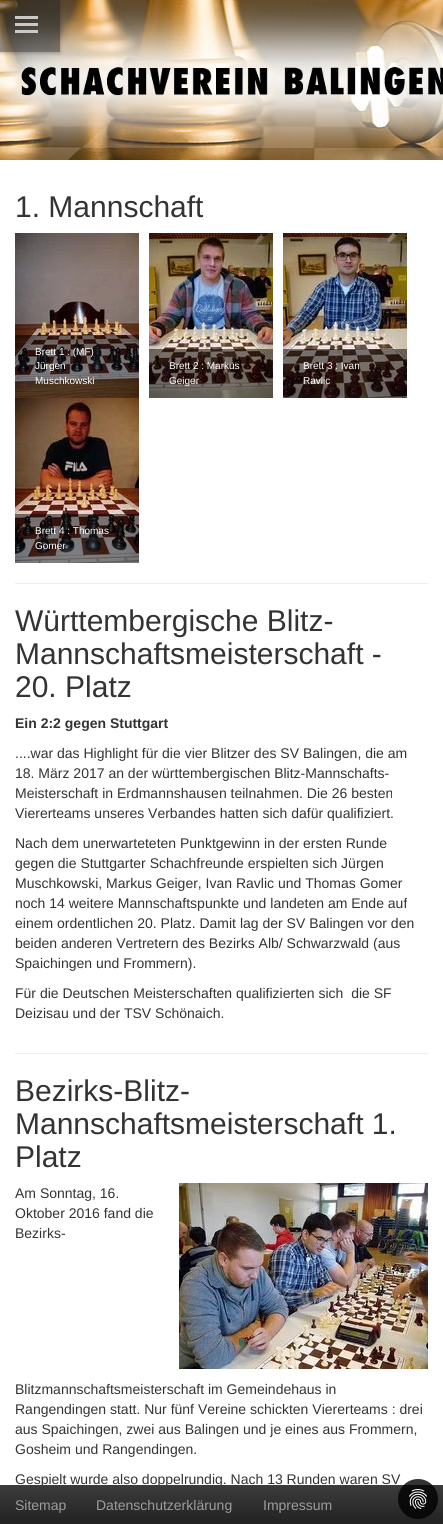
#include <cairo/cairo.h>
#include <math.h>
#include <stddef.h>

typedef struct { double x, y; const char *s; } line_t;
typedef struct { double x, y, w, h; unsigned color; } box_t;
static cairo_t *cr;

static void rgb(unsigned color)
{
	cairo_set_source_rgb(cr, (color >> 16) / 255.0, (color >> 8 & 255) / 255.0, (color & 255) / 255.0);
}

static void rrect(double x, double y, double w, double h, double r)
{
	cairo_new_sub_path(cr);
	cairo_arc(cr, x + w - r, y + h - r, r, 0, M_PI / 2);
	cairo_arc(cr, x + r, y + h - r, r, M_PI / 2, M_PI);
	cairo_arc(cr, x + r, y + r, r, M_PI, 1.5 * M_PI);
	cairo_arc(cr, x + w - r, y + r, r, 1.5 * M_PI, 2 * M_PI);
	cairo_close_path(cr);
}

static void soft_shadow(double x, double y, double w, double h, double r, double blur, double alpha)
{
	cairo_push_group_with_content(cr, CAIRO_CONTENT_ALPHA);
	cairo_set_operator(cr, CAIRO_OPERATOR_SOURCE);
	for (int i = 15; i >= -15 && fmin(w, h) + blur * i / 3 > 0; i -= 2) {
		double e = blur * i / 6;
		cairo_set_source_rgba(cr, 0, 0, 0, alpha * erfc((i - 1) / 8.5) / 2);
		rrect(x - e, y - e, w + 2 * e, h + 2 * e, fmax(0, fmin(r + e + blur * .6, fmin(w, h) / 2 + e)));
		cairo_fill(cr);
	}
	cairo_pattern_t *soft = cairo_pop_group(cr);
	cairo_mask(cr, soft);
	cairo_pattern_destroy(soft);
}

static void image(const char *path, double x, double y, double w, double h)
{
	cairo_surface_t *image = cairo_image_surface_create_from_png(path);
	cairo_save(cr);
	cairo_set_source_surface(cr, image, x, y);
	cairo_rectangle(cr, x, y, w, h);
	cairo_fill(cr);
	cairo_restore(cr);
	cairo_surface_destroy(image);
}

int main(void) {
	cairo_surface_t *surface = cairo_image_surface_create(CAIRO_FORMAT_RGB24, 443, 1524);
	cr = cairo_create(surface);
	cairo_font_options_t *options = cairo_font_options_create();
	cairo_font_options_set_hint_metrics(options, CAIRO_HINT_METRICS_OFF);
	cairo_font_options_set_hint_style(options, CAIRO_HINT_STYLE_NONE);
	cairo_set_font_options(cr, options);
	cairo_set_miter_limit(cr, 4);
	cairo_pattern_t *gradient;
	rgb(0xffffff);
	cairo_paint(cr);
	image("img/1.png", 0, 0, 443, 160);
	image("img/2.png", 0, 0, 443, 160);
	cairo_save(cr);
	cairo_set_fill_rule(cr, CAIRO_FILL_RULE_EVEN_ODD);
	cairo_new_path(cr);
	cairo_move_to(cr, 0, 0);
	cairo_line_to(cr, 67, 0);
	cairo_line_to(cr, 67, 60);
	cairo_line_to(cr, 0, 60);
	cairo_close_path(cr);
	cairo_move_to(cr, 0, 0);
	cairo_line_to(cr, 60, 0);
	cairo_line_to(cr, 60, 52);
	cairo_line_to(cr, 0, 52);
	cairo_close_path(cr);
	cairo_clip(cr);
	rgb(0x000000);
	soft_shadow(0, 1, 60, 52, 0, 2, 0.25);
	cairo_restore(cr);
	gradient = cairo_pattern_create_linear(30, 0, 30, 52);
	cairo_pattern_add_color_stop_rgba(gradient, 0, 0.149, 0.149, 0.149, 0.5);
	cairo_pattern_add_color_stop_rgba(gradient, 0.5, 0.11, 0.11, 0.11, 0.5);
	cairo_pattern_add_color_stop_rgba(gradient, 1, 0.149, 0.149, 0.149, 0.5);
	cairo_set_source(cr, gradient);
	cairo_pattern_destroy(gradient);
	cairo_rectangle(cr, 0, 0, 60, 52);
	cairo_fill(cr);
	{
		static const box_t items[] = {
			{15, 23, 23, 3, 0xc9c9c9},
			{15, 16, 23, 3, 0xc9c9c9},
			{15, 30, 23, 3, 0xc9c9c9},
		};
		for (size_t i = 0; i < sizeof items / sizeof *items; i++) {
			rgb(items[i].color);
			cairo_rectangle(cr, items[i].x, items[i].y, items[i].w, items[i].h);
			cairo_fill(cr);
		}
	}
	image("img/3.png", 15, 233, 124, 165);
	cairo_set_source_rgba(cr, 0, 0, 0, 0.5);
	cairo_rectangle(cr, 15, 335, 124, 63);
	cairo_fill(cr);
	image("img/4.png", 149, 233, 124, 165);
	cairo_rectangle(cr, 149, 349, 124, 49);
	cairo_fill(cr);
	image("img/5.png", 283, 233, 124, 165);
	cairo_rectangle(cr, 283, 349, 124, 49);
	cairo_fill(cr);
	image("img/6.png", 15, 398, 124, 165);
	cairo_rectangle(cr, 15, 514, 124, 49);
	cairo_fill(cr);
	rgb(0xeeeeee);
	cairo_rectangle(cr, 15, 583, 413, 1);
	cairo_fill(cr);
	cairo_rectangle(cr, 15, 1053, 413, 1);
	cairo_fill(cr);
	image("img/7.png", 179, 1183, 249, 186);
	cairo_select_font_face(cr, "Liberation Sans", CAIRO_FONT_SLANT_NORMAL, CAIRO_FONT_WEIGHT_NORMAL);
	cairo_set_font_size(cr, 30);
	rgb(0x333333);
	cairo_move_to(cr, 15, 217);
	cairo_show_text(cr, "1. Mannschaft");
	cairo_set_font_size(cr, 10);
	rgb(0xffffff);
	{
		static const line_t items[] = {
			{35, 355, "Brett 1 : (MF)"},
			{35, 369, "Jürgen"},
			{35, 384, "Muschkowski"},
			{169, 369, "Brett 2 : Markus"},
			{169, 384, "Geiger"},
			{303, 369, "Brett 3 : Ivan"},
			{303, 384, "Ravlic"},
			{35, 534, "Brett 4 : Thomas"},
			{35, 549, "Gomer"},
		};
		for (size_t i = 0; i < sizeof items / sizeof *items; i++) {
			cairo_move_to(cr, items[i].x, items[i].y);
			cairo_show_text(cr, items[i].s);
		}
	}
	cairo_set_font_size(cr, 30);
	rgb(0x333333);
	{
		static const line_t items[] = {
			{15, 631, "Württembergische Blitz-"},
			{15, 664, "Mannschaftsmeisterschaft -"},
			{15, 697, "20. Platz"},
		};
		for (size_t i = 0; i < sizeof items / sizeof *items; i++) {
			cairo_move_to(cr, items[i].x, items[i].y);
			cairo_show_text(cr, items[i].s);
		}
	}
	cairo_select_font_face(cr, "Liberation Sans", CAIRO_FONT_SLANT_NORMAL, CAIRO_FONT_WEIGHT_BOLD);
	cairo_set_font_size(cr, 14);
	cairo_move_to(cr, 15, 728);
	cairo_show_text(cr, "Ein 2:2 gegen Stuttgart");
	cairo_select_font_face(cr, "Liberation Sans", CAIRO_FONT_SLANT_NORMAL, CAIRO_FONT_WEIGHT_NORMAL);
	{
		static const line_t items[] = {
			{15, 758, "....war das Highlight für die vier Blitzer des SV Balingen, die am"},
			{15, 778, "18. März 2017 an der württembergischen Blitz-Mannschafts-"},
			{15, 798, "Meisterschaft in Erdmannshausen teilnahmen. Die 26 besten"},
			{15, 818, "Viererteams unseres Verbandes hatten sich dafür qualifiziert."},
			{15, 848, "Nach dem unerwarteteten Punktgewinn in der ersten Runde"},
			{15, 868, "gegen die Stuttgarter Schachfreunde erspielten sich Jürgen"},
			{15, 888, "Muschkowski, Markus Geiger, Ivan Ravlic und Thomas Gomer"},
			{15, 908, "noch 14 weitere Mannschaftspunkte und landeten am Ende auf"},
			{15, 928, "einem ordentlichen 20. Platz. Damit lag der SV Balingen vor den"},
			{15, 948, "beiden anderen Vertretern des Bezirks Alb/ Schwarzwald (aus"},
			{15, 968, "Spaichingen und Frommern)."},
			{15, 998, "Für die Deutschen Meisterschaften qualifizierten sich  die SF"},
			{15, 1018, "Deizisau und der TSV Schönaich."},
		};
		for (size_t i = 0; i < sizeof items / sizeof *items; i++) {
			cairo_move_to(cr, items[i].x, items[i].y);
			cairo_show_text(cr, items[i].s);
		}
	}
	cairo_set_font_size(cr, 30);
	{
		static const line_t items[] = {
			{15, 1101, "Bezirks-Blitz-"},
			{15, 1134, "Mannschaftsmeisterschaft 1."},
			{15, 1167, "Platz"},
		};
		for (size_t i = 0; i < sizeof items / sizeof *items; i++) {
			cairo_move_to(cr, items[i].x, items[i].y);
			cairo_show_text(cr, items[i].s);
		}
	}
	cairo_set_font_size(cr, 14);
	{
		static const line_t items[] = {
			{15, 1198, "Am Sonntag, 16."},
			{15, 1218, "Oktober 2016 fand die"},
			{15, 1238, "Bezirks-"},
			{15, 1394, "Blitzmannschaftsmeisterschaft im Gemeindehaus in"},
			{15, 1414, "Rangendingen statt. Nur fünf Vereine schickten Viererteams : drei"},
			{15, 1434, "aus Spaichingen, zwei aus Balingen und je eines aus Frommern,"},
			{15, 1454, "Gosheim und Rangendingen."},
			{15, 1484, "Gespielt wurde also doppelrundig. Nach 13 Runden waren SV"},
		};
		for (size_t i = 0; i < sizeof items / sizeof *items; i++) {
			cairo_move_to(cr, items[i].x, items[i].y);
			cairo_show_text(cr, items[i].s);
		}
	}
	gradient = cairo_pattern_create_linear(222, 1485, 222, 1524);
	cairo_pattern_add_color_stop_rgba(gradient, 0, 0.235, 0.235, 0.235, 1);
	cairo_pattern_add_color_stop_rgba(gradient, 1, 0.133, 0.133, 0.133, 1);
	cairo_set_source(cr, gradient);
	cairo_pattern_destroy(gradient);
	cairo_rectangle(cr, 0, 1485, 443, 39);
	cairo_fill(cr);
	rgb(0x9d9d9d);
	{
		static const line_t items[] = {
			{15, 1510, "Sitemap"},
			{96, 1510, "Datenschutzerklärung"},
			{263, 1510, "Impressum"},
		};
		for (size_t i = 0; i < sizeof items / sizeof *items; i++) {
			cairo_move_to(cr, items[i].x, items[i].y);
			cairo_show_text(cr, items[i].s);
		}
	}
	cairo_set_source_rgba(cr, 0, 0, 0, 0.8);
	cairo_new_path(cr);
	cairo_arc(cr, 418, 1499, 20, 0, 2 * M_PI);
	cairo_fill(cr);
	image("img/8.png", 409, 1489, 18, 20);
	cairo_surface_write_to_png(surface, "page.png");
	cairo_font_options_destroy(options);
	cairo_destroy(cr);
	cairo_surface_destroy(surface);
	return 0;
}
